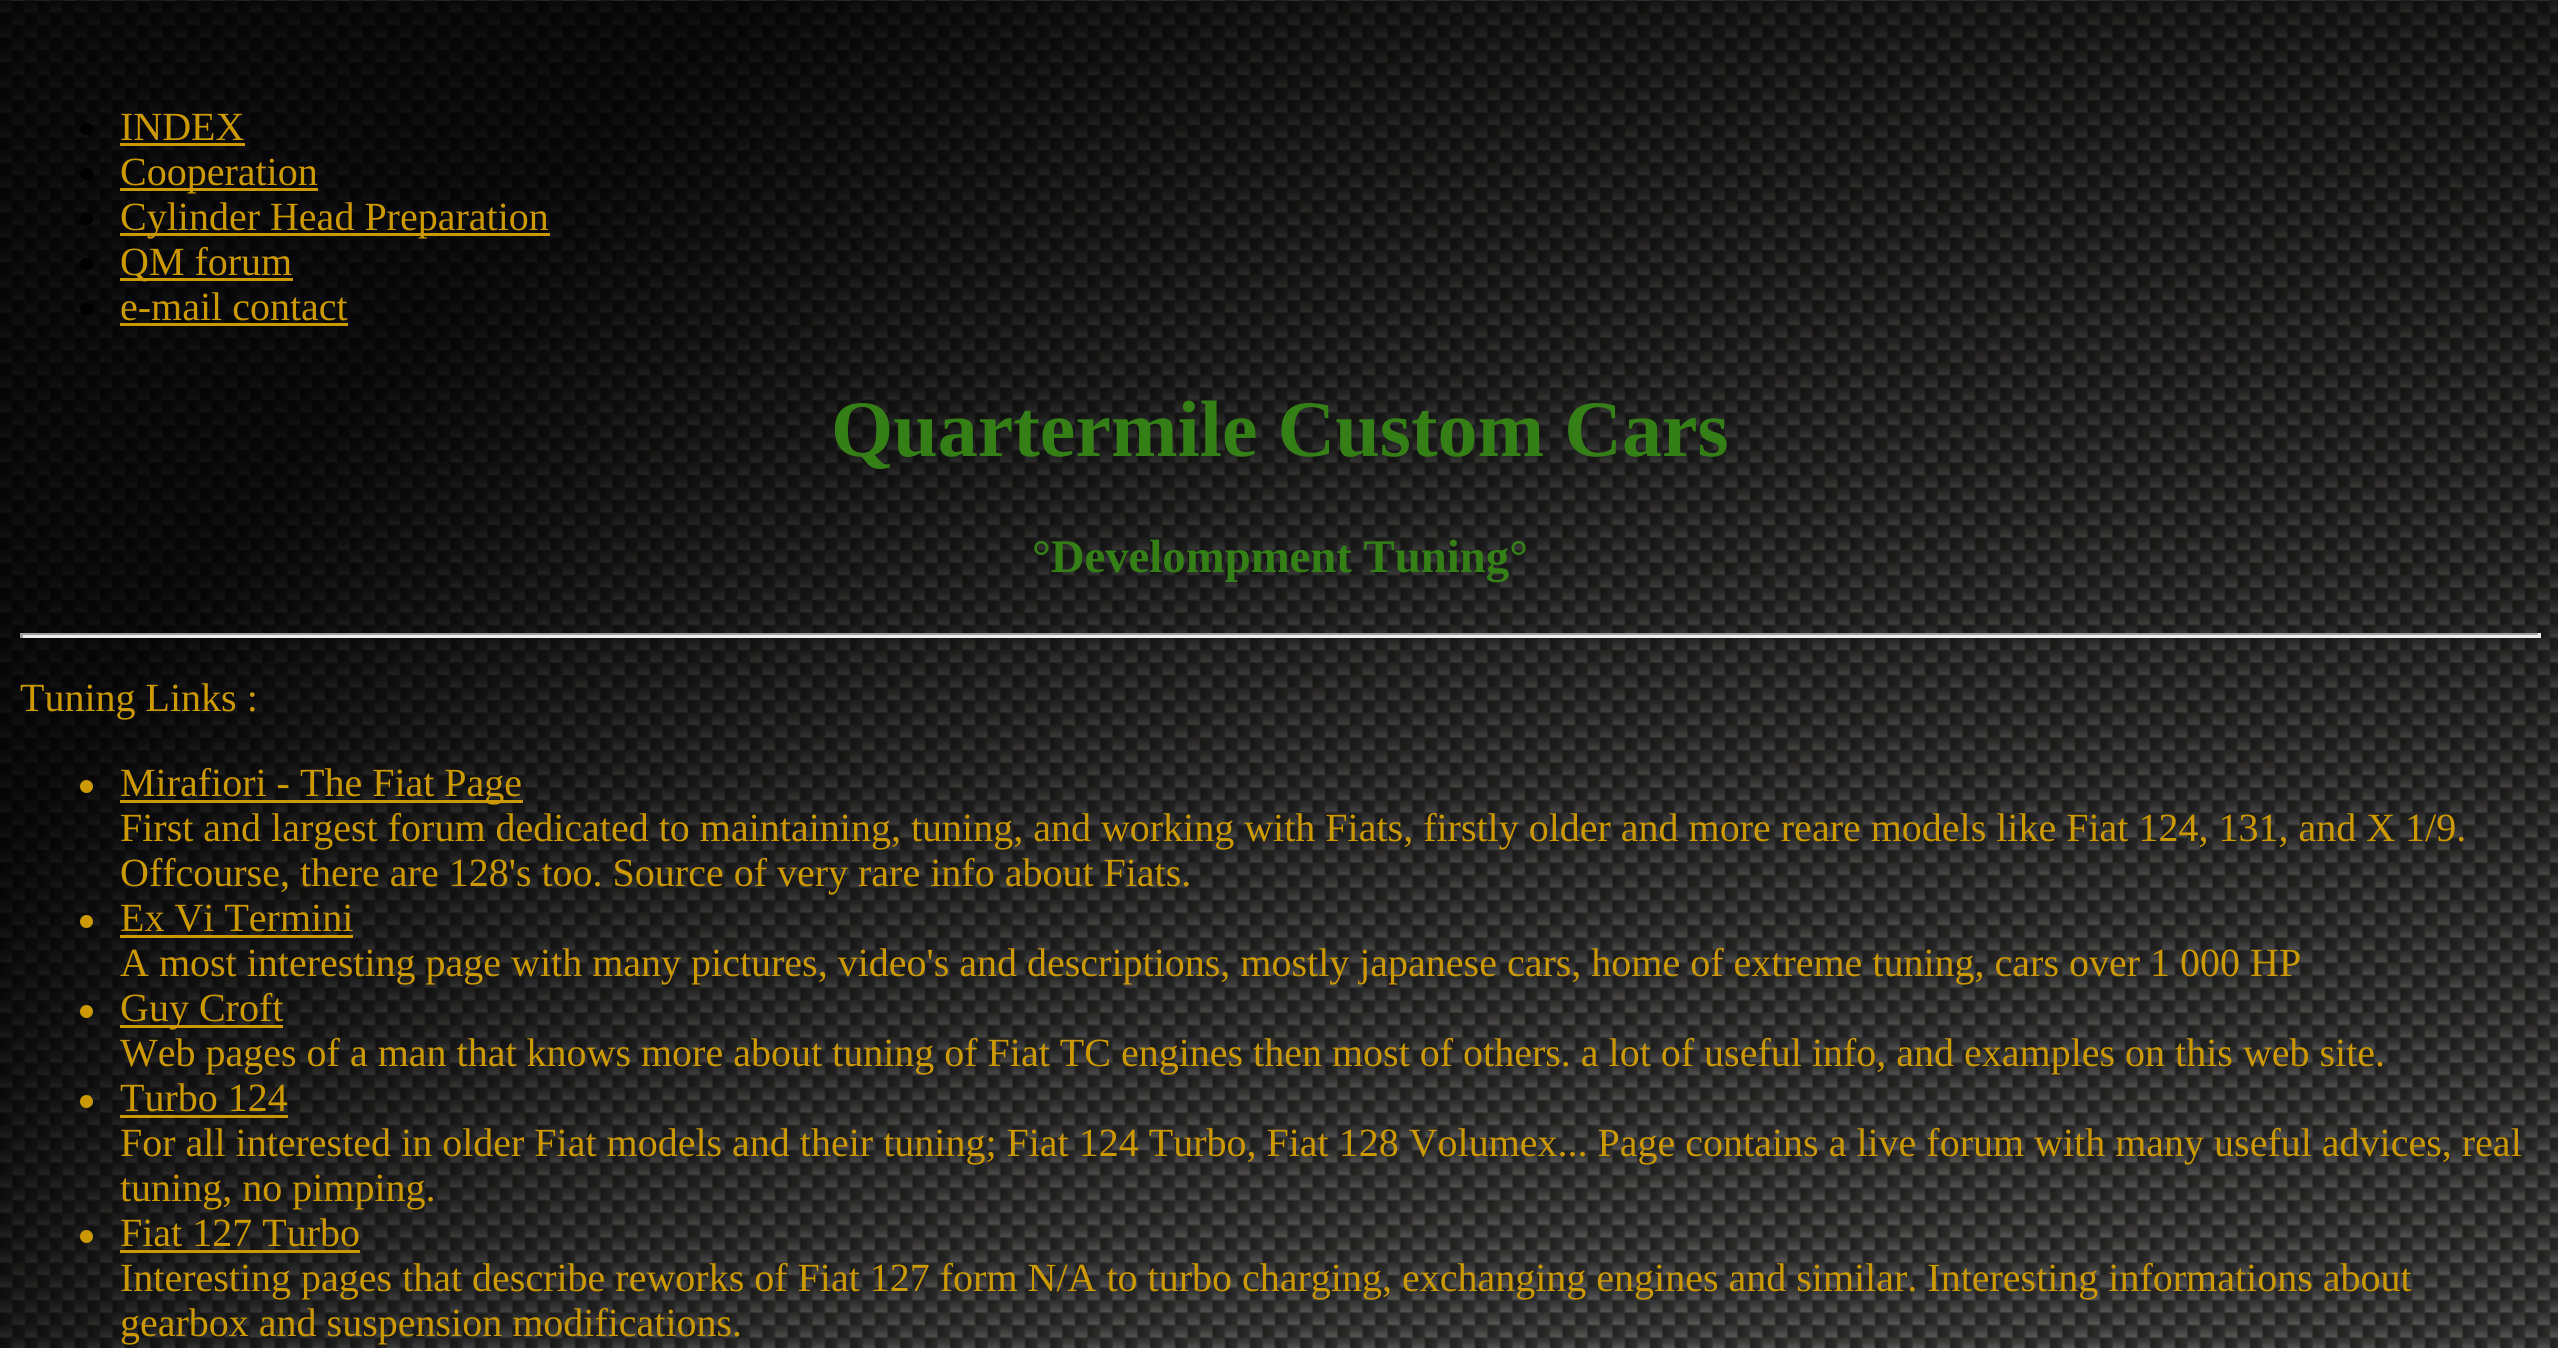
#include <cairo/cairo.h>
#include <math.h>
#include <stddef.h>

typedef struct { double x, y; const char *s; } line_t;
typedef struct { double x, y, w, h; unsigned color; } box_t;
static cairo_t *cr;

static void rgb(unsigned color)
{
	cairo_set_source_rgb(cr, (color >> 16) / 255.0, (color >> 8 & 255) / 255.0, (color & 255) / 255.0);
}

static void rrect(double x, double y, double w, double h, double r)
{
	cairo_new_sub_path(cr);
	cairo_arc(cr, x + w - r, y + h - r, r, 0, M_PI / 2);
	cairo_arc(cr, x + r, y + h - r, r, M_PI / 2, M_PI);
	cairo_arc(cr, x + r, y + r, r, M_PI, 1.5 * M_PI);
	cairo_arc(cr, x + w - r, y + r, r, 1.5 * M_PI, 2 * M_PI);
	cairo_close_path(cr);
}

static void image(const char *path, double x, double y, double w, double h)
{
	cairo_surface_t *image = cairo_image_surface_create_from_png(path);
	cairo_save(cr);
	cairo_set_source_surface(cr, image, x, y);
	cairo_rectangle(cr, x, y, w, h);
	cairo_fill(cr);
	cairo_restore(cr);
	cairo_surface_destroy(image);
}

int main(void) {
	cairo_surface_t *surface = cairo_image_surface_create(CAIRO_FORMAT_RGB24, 2558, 1348);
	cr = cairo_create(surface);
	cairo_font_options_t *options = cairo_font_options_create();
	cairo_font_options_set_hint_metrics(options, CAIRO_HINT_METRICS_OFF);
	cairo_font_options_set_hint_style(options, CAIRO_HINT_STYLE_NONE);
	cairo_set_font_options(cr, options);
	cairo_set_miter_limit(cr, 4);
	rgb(0xffffff);
	cairo_paint(cr);
	image("img/1.png", 0, 0, 2558, 1348);
	rgb(0x000000);
	rrect(80, 123, 13, 12, 6);
	cairo_fill(cr);
	rgb(0xcc9900);
	cairo_rectangle(cr, 120, 143, 125, 3);
	cairo_fill(cr);
	rgb(0x000000);
	rrect(80, 168, 13, 12, 6);
	cairo_fill(cr);
	rgb(0xcc9900);
	cairo_rectangle(cr, 120, 188, 198, 3);
	cairo_fill(cr);
	rgb(0x000000);
	rrect(80, 213, 13, 12, 6);
	cairo_fill(cr);
	rgb(0xcc9900);
	cairo_rectangle(cr, 120, 233, 430, 3);
	cairo_fill(cr);
	rgb(0x000000);
	rrect(80, 258, 13, 12, 6);
	cairo_fill(cr);
	rgb(0xcc9900);
	cairo_rectangle(cr, 120, 278, 173, 3);
	cairo_fill(cr);
	rgb(0x000000);
	rrect(80, 303, 13, 12, 6);
	cairo_fill(cr);
	{
		static const box_t items[] = {
			{120, 323, 228, 3, 0xcc9900},
			{20, 633, 2520, 2, 0x9f9f9f},
			{2538, 633, 3, 5, 0xeeeeee},
			{20, 635, 2520, 3, 0xeeeeee},
			{20, 633, 3, 5, 0x9f9f9f},
		};
		for (size_t i = 0; i < sizeof items / sizeof *items; i++) {
			rgb(items[i].color);
			cairo_rectangle(cr, items[i].x, items[i].y, items[i].w, items[i].h);
			cairo_fill(cr);
		}
	}
	rgb(0xcc9900);
	cairo_arc(cr, 86.5, 786.5, 6.5, 0, 2 * M_PI);
	cairo_fill(cr);
	cairo_rectangle(cr, 120, 800, 403, 3);
	cairo_fill(cr);
	cairo_arc(cr, 86.5, 921.5, 6.5, 0, 2 * M_PI);
	cairo_fill(cr);
	cairo_rectangle(cr, 120, 935, 233, 3);
	cairo_fill(cr);
	cairo_arc(cr, 86.5, 1011.5, 6.5, 0, 2 * M_PI);
	cairo_fill(cr);
	cairo_rectangle(cr, 120, 1025, 163, 3);
	cairo_fill(cr);
	cairo_arc(cr, 86.5, 1101.5, 6.5, 0, 2 * M_PI);
	cairo_fill(cr);
	cairo_rectangle(cr, 120, 1115, 168, 3);
	cairo_fill(cr);
	cairo_arc(cr, 86.5, 1236.5, 6.5, 0, 2 * M_PI);
	cairo_fill(cr);
	cairo_rectangle(cr, 120, 1250, 240, 3);
	cairo_fill(cr);
	cairo_select_font_face(cr, "Liberation Serif", CAIRO_FONT_SLANT_NORMAL, CAIRO_FONT_WEIGHT_NORMAL);
	cairo_set_font_size(cr, 40);
	{
		static const line_t items[] = {
			{120, 140, "INDEX"},
			{120, 185, "Cooperation"},
			{120, 230, "Cylinder Head Preparation"},
			{120, 275, "QM forum"},
			{120, 320, "e-mail contact"},
		};
		for (size_t i = 0; i < sizeof items / sizeof *items; i++) {
			cairo_move_to(cr, items[i].x, items[i].y);
			cairo_show_text(cr, items[i].s);
		}
	}
	cairo_select_font_face(cr, "Liberation Serif", CAIRO_FONT_SLANT_NORMAL, CAIRO_FONT_WEIGHT_BOLD);
	cairo_set_font_size(cr, 80);
	rgb(0x348017);
	cairo_move_to(cr, 831, 456);
	cairo_show_text(cr, "Quartermile Custom Cars");
	cairo_set_font_size(cr, 46.75);
	cairo_move_to(cr, 1032, 572);
	cairo_show_text(cr, "°Develompment Tuning°");
	cairo_select_font_face(cr, "Liberation Serif", CAIRO_FONT_SLANT_NORMAL, CAIRO_FONT_WEIGHT_NORMAL);
	cairo_set_font_size(cr, 40);
	rgb(0xcc9900);
	{
		static const line_t items[] = {
			{20, 711, "Tuning Links :"},
			{120, 796, "Mirafiori - The Fiat Page"},
			{120, 841, "First and largest forum dedicated to maintaining, tuning, and working with Fiats, firstly older and more reare models like Fiat 124, 131, and X 1/9."},
			{120, 886, "Offcourse, there are 128's too. Source of very rare info about Fiats."},
			{120, 931, "Ex Vi Termini"},
			{120, 976, "A most interesting page with many pictures, video's and descriptions, mostly japanese cars, home of extreme tuning, cars over 1 000 HP"},
			{120, 1021, "Guy Croft"},
			{120, 1066, "Web pages of a man that knows more about tuning of Fiat TC engines then most of others. a lot of useful info, and examples on this web site."},
			{120, 1111, "Turbo 124"},
			{120, 1156, "For all interested in older Fiat models and their tuning; Fiat 124 Turbo, Fiat 128 Volumex... Page contains a live forum with many useful advices, real"},
			{120, 1201, "tuning, no pimping."},
			{120, 1246, "Fiat 127 Turbo"},
			{120, 1291, "Interesting pages that describe reworks of Fiat 127 form N/A to turbo charging, exchanging engines and similar. Interesting informations about"},
			{120, 1336, "gearbox and suspension modifications."},
		};
		for (size_t i = 0; i < sizeof items / sizeof *items; i++) {
			cairo_move_to(cr, items[i].x, items[i].y);
			cairo_show_text(cr, items[i].s);
		}
	}
	cairo_surface_write_to_png(surface, "page.png");
	cairo_font_options_destroy(options);
	cairo_destroy(cr);
	cairo_surface_destroy(surface);
	return 0;
}
